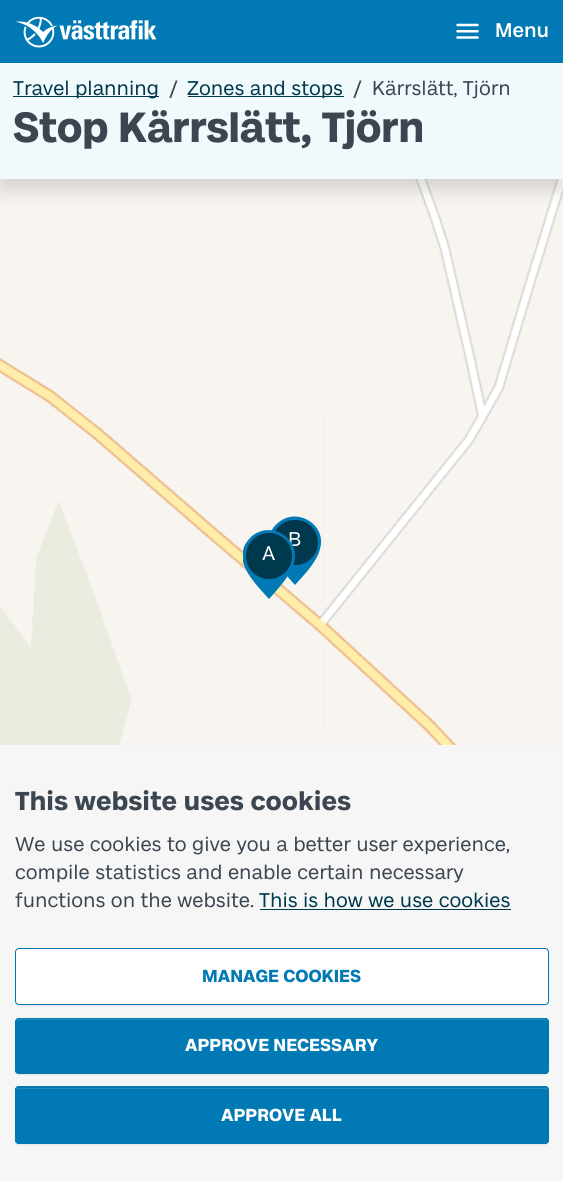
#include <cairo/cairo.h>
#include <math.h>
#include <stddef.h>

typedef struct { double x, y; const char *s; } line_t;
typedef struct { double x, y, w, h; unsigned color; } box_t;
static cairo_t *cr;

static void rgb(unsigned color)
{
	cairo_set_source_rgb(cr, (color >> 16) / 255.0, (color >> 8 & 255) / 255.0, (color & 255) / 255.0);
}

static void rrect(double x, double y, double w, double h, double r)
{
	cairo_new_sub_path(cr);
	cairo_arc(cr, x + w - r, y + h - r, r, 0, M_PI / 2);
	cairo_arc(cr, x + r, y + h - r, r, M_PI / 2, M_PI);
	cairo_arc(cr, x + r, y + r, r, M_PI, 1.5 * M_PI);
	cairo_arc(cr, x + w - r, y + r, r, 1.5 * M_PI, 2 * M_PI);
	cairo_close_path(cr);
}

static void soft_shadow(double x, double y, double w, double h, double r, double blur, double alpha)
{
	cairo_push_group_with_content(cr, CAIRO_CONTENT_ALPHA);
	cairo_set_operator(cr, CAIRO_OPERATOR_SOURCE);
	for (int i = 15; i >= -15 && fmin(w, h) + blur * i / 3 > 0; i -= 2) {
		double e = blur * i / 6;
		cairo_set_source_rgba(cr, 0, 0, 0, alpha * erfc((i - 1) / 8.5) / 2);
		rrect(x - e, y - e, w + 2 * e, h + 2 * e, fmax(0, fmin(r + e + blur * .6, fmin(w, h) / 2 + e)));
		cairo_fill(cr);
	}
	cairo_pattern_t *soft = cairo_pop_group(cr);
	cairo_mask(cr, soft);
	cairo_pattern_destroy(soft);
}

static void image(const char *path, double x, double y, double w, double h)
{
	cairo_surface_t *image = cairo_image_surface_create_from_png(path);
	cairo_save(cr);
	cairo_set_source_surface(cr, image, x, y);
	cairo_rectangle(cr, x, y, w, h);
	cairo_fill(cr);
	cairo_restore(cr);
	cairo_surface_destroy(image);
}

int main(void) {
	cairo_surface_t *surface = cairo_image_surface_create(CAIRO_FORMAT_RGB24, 563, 1181);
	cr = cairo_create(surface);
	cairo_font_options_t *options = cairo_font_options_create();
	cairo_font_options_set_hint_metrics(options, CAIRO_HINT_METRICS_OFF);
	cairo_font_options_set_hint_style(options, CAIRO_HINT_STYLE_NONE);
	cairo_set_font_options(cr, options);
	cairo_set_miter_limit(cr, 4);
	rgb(0xdddddd);
	cairo_paint(cr);
	image("img/3.png", 0, 179, 4, 232);
	image("img/7.png", 4, 411, 320, 320);
	image("img/4.png", 4, 179, 320, 233);
	image("img/8.png", 324, 411, 239, 320);
	image("img/5.png", 324, 179, 239, 233);
	rgb(0x000000);
	soft_shadow(0, 73, 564, 116, 0, 10, 0.15);
	rgb(0x0079b4);
	cairo_rectangle(cr, 0, 0, 563, 63);
	cairo_fill(cr);
	image("img/1.png", 16, 16, 141, 32);
	image("img/2.png", 456, 23, 23, 16);
	{
		static const box_t items[] = {
			{0, 63, 563, 116, 0xf0f9fc},
			{13, 96, 146, 1, 0x00394d},
			{188, 96, 156, 1, 0x00394d},
		};
		for (size_t i = 0; i < sizeof items / sizeof *items; i++) {
			rgb(items[i].color);
			cairo_rectangle(cr, items[i].x, items[i].y, items[i].w, items[i].h);
			cairo_fill(cr);
		}
	}
	image("img/6.png", 0, 411, 4, 320);
	rgb(0xe9ecdf);
	cairo_rectangle(cr, 0, 731, 4, 14);
	cairo_fill(cr);
	image("img/9.png", 4, 731, 320, 14);
	image("img/10.png", 324, 731, 239, 14);
	rgb(0x0079b4);
	cairo_new_path(cr);
	cairo_move_to(cr, 295, 585);
	cairo_curve_to(cr, 287, 576, 275, 563, 270, 552);
	cairo_curve_to(cr, 268, 546, 268, 539, 270, 533);
	cairo_curve_to(cr, 272, 529, 275, 525, 279, 522);
	cairo_curve_to(cr, 298, 507, 327, 525, 320, 549);
	cairo_curve_to(cr, 317, 562, 303, 576, 295, 585);
	cairo_close_path(cr);
	cairo_fill(cr);
	rgb(0x00394d);
	rrect(272, 520, 46, 45, 22.5);
	cairo_fill(cr);
	rgb(0xf6f6f6);
	cairo_rectangle(cr, 0, 745, 563, 436);
	cairo_fill(cr);
	rgb(0x00394d);
	cairo_rectangle(cr, 260, 909, 251, 1);
	cairo_fill(cr);
	rgb(0x000000);
	soft_shadow(15, 949, 534, 57, 4, 0.5, 0.07);
	rgb(0xffffff);
	rrect(15.5, 948.5, 533, 56, 3.5);
	cairo_fill_preserve(cr);
	rgb(0x0079b4);
	cairo_set_line_width(cr, 1);
	cairo_stroke(cr);
	rgb(0x000000);
	soft_shadow(15, 1019, 534, 56, 4, 0.5, 0.07);
	rgb(0x0079b4);
	rrect(15, 1018, 534, 56, 4);
	cairo_fill(cr);
	rgb(0x268dbf);
	cairo_new_path(cr);
	cairo_move_to(cr, 19, 1020);
	cairo_line_to(cr, 545, 1020);
	cairo_curve_to(cr, 546, 1020, 548, 1021, 548, 1022);
	cairo_curve_to(cr, 548, 1020, 547, 1019, 546, 1019);
	cairo_line_to(cr, 18, 1019);
	cairo_curve_to(cr, 17, 1019, 16, 1020, 16, 1022);
	cairo_curve_to(cr, 16, 1021, 17, 1020, 19, 1020);
	cairo_close_path(cr);
	cairo_fill(cr);
	rrect(15.5, 1018.5, 533, 55, 3.5);
	rgb(0x0079b4);
	cairo_stroke(cr);
	rgb(0x000000);
	soft_shadow(15, 1088, 534, 57, 4, 0.5, 0.07);
	rgb(0x0079b4);
	rrect(15, 1086, 534, 58, 4);
	cairo_fill(cr);
	rgb(0x268dbf);
	cairo_new_path(cr);
	cairo_move_to(cr, 19, 1089);
	cairo_line_to(cr, 545, 1089);
	cairo_curve_to(cr, 546, 1089, 548, 1090, 548, 1091);
	cairo_curve_to(cr, 548, 1089, 547, 1088, 546, 1088);
	cairo_line_to(cr, 18, 1088);
	cairo_curve_to(cr, 17, 1088, 16, 1089, 16, 1091);
	cairo_curve_to(cr, 16, 1090, 17, 1089, 19, 1089);
	cairo_close_path(cr);
	cairo_fill(cr);
	rrect(15.5, 1086.5, 533, 57, 3.5);
	rgb(0x0079b4);
	cairo_stroke(cr);
	cairo_select_font_face(cr, "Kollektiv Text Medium", CAIRO_FONT_SLANT_NORMAL, CAIRO_FONT_WEIGHT_NORMAL);
	cairo_set_font_size(cr, 20);
	rgb(0xffffff);
	cairo_move_to(cr, 495, 37);
	cairo_show_text(cr, "Menu");
	cairo_select_font_face(cr, "Kollektiv Text", CAIRO_FONT_SLANT_NORMAL, CAIRO_FONT_WEIGHT_NORMAL);
	rgb(0x00394d);
	cairo_move_to(cr, 13, 95);
	cairo_show_text(cr, "Travel planning");
	rgb(0x3c4650);
	cairo_move_to(cr, 169, 95);
	cairo_show_text(cr, "/");
	rgb(0x00394d);
	cairo_move_to(cr, 187, 95);
	cairo_show_text(cr, "Zones and stops");
	rgb(0x3c4650);
	cairo_move_to(cr, 353, 95);
	cairo_show_text(cr, "/");
	cairo_move_to(cr, 372, 95);
	cairo_show_text(cr, "Kärrslätt, Tjörn");
	cairo_select_font_face(cr, "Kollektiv", CAIRO_FONT_SLANT_NORMAL, CAIRO_FONT_WEIGHT_BOLD);
	cairo_set_font_size(cr, 42.5);
	cairo_move_to(cr, 13, 142);
	cairo_show_text(cr, "Stop Kärrslätt, Tjörn");
	cairo_select_font_face(cr, "Kollektiv Text", CAIRO_FONT_SLANT_NORMAL, CAIRO_FONT_WEIGHT_NORMAL);
	cairo_set_font_size(cr, 20);
	rgb(0xffffff);
	cairo_move_to(cr, 288, 546);
	cairo_show_text(cr, "B");
	cairo_save(cr);
	cairo_rectangle(cr, 243, 530, 52, 69);
	cairo_clip(cr);
	rgb(0x0079b4);
	cairo_new_path(cr);
	cairo_move_to(cr, 269, 599);
	cairo_curve_to(cr, 261, 590, 248, 577, 244, 565);
	cairo_curve_to(cr, 242, 560, 242, 553, 244, 547);
	cairo_curve_to(cr, 246, 542, 249, 539, 252, 536);
	cairo_curve_to(cr, 272, 520, 301, 539, 294, 563);
	cairo_curve_to(cr, 291, 575, 277, 590, 269, 599);
	cairo_close_path(cr);
	cairo_fill(cr);
	cairo_restore(cr);
	rgb(0x00394d);
	cairo_arc(cr, 269, 556, 23, 0, 2 * M_PI);
	cairo_fill(cr);
	rgb(0xffffff);
	cairo_move_to(cr, 262, 560);
	cairo_show_text(cr, "A");
	cairo_select_font_face(cr, "Kollektiv Text", CAIRO_FONT_SLANT_NORMAL, CAIRO_FONT_WEIGHT_BOLD);
	cairo_set_font_size(cr, 26.1);
	rgb(0x3c4650);
	cairo_move_to(cr, 15, 810);
	cairo_show_text(cr, "This website uses cookies");
	cairo_select_font_face(cr, "Kollektiv Text", CAIRO_FONT_SLANT_NORMAL, CAIRO_FONT_WEIGHT_NORMAL);
	cairo_set_font_size(cr, 20);
	{
		static const line_t items[] = {
			{15, 851, "We use cookies to give you a better user experience,"},
			{15, 879, "compile statistics and enable certain necessary"},
			{15, 907, "functions on the website."},
		};
		for (size_t i = 0; i < sizeof items / sizeof *items; i++) {
			cairo_move_to(cr, items[i].x, items[i].y);
			cairo_show_text(cr, items[i].s);
		}
	}
	rgb(0x00394d);
	cairo_move_to(cr, 259, 907);
	cairo_show_text(cr, "This is how we use cookies");
	cairo_select_font_face(cr, "Kollektiv Text", CAIRO_FONT_SLANT_NORMAL, CAIRO_FONT_WEIGHT_BOLD);
	cairo_set_font_size(cr, 17.5);
	rgb(0x0079b4);
	cairo_move_to(cr, 202, 982);
	cairo_show_text(cr, "MANAGE COOKIES");
	rgb(0xffffff);
	cairo_move_to(cr, 185, 1051);
	cairo_show_text(cr, "APPROVE NECESSARY");
	cairo_move_to(cr, 221, 1121);
	cairo_show_text(cr, "APPROVE ALL");
	cairo_surface_write_to_png(surface, "page.png");
	cairo_font_options_destroy(options);
	cairo_destroy(cr);
	cairo_surface_destroy(surface);
	return 0;
}
